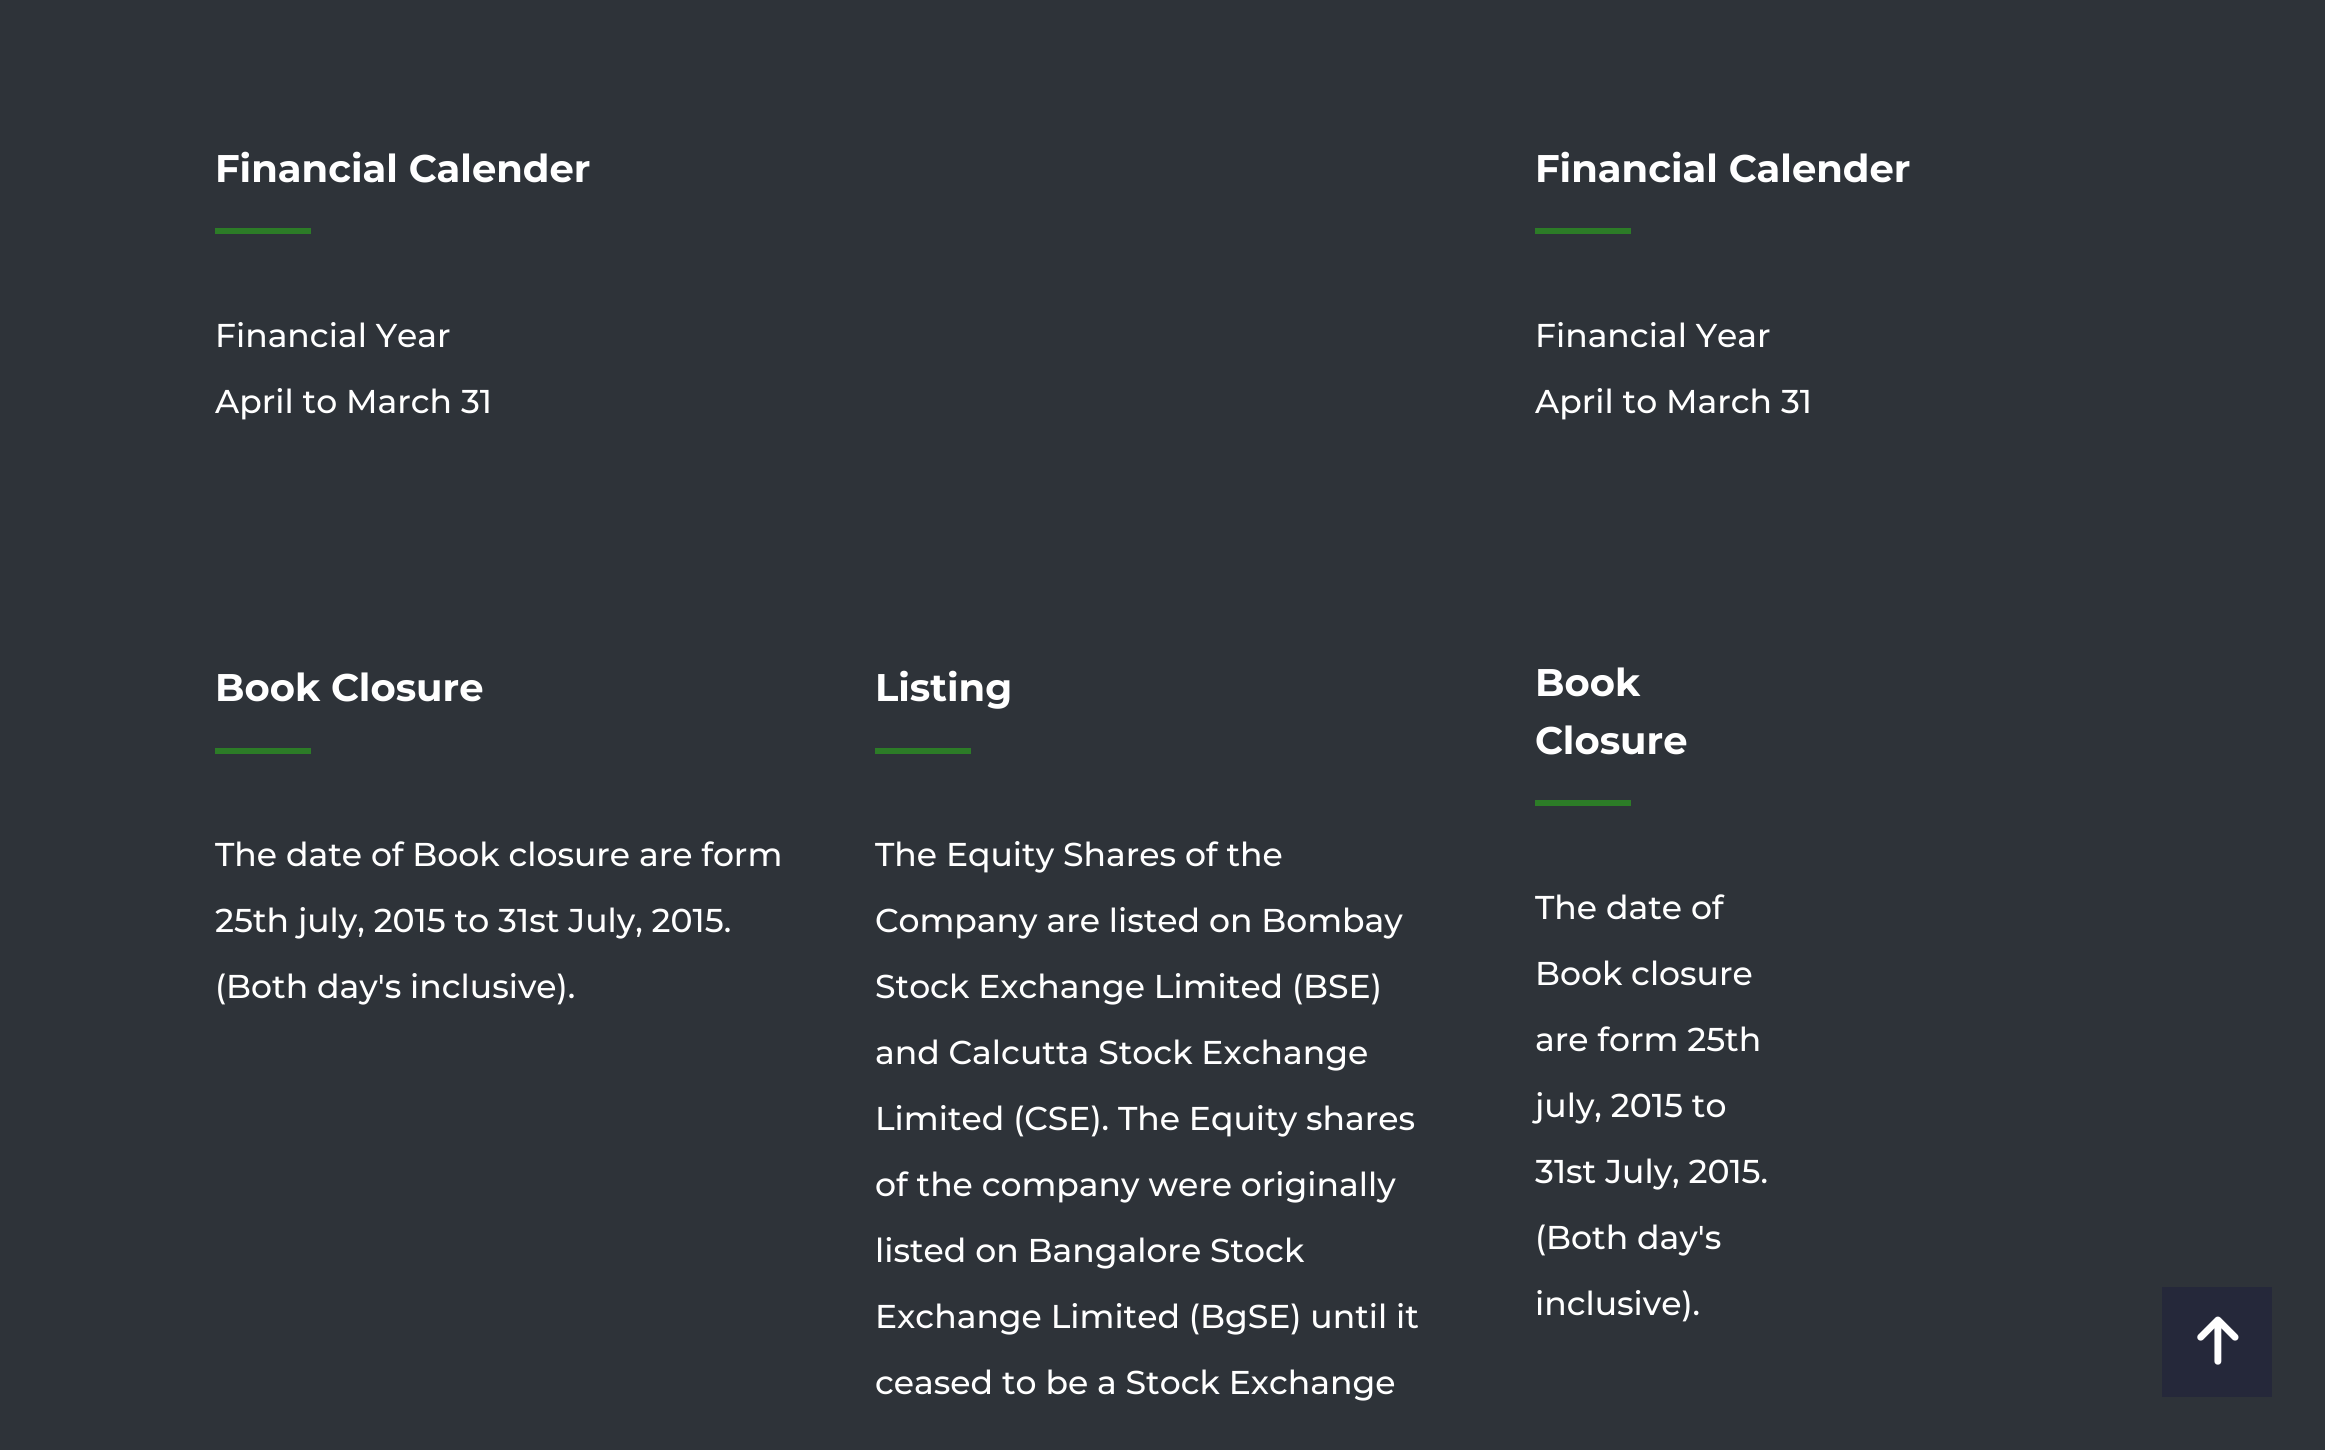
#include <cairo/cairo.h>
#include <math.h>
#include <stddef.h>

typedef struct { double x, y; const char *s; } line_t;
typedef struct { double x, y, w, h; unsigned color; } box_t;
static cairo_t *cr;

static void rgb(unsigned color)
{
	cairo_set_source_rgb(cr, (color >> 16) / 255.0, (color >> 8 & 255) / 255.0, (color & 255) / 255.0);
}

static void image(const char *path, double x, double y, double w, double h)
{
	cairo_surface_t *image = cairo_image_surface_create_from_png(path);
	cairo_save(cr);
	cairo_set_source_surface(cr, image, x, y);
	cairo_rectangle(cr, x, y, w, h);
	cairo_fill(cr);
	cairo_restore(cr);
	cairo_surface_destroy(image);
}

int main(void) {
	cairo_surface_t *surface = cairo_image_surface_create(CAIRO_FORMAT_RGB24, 2325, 1450);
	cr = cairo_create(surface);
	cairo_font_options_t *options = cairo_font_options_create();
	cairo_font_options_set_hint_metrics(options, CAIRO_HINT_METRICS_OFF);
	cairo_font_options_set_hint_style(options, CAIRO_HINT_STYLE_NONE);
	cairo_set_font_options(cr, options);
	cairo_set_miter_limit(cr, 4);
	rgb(0x2e3339);
	cairo_paint(cr);
	{
		static const box_t items[] = {
			{215, 228, 96, 6, 0x2c7c27},
			{215, 748, 96, 6, 0x2c7c27},
			{875, 748, 96, 6, 0x2c7c27},
			{1535, 228, 96, 6, 0x2c7c27},
			{1535, 800, 96, 6, 0x2c7c27},
			{2162, 1287, 110, 110, 0x25283a},
		};
		for (size_t i = 0; i < sizeof items / sizeof *items; i++) {
			rgb(items[i].color);
			cairo_rectangle(cr, items[i].x, items[i].y, items[i].w, items[i].h);
			cairo_fill(cr);
		}
	}
	image("img/1.png", 2197, 1316, 42, 49);
	cairo_select_font_face(cr, "Montserrat", CAIRO_FONT_SLANT_NORMAL, CAIRO_FONT_WEIGHT_BOLD);
	cairo_set_font_size(cr, 38.5);
	rgb(0xffffff);
	cairo_move_to(cr, 215, 182);
	cairo_show_text(cr, "Financial Calender");
	cairo_select_font_face(cr, "Montserrat Medium", CAIRO_FONT_SLANT_NORMAL, CAIRO_FONT_WEIGHT_NORMAL);
	cairo_set_font_size(cr, 33);
	cairo_move_to(cr, 215, 347);
	cairo_show_text(cr, "Financial Year");
	cairo_move_to(cr, 215, 413);
	cairo_show_text(cr, "April to March 31");
	cairo_select_font_face(cr, "Montserrat", CAIRO_FONT_SLANT_NORMAL, CAIRO_FONT_WEIGHT_BOLD);
	cairo_set_font_size(cr, 38.5);
	cairo_move_to(cr, 215, 701);
	cairo_show_text(cr, "Book Closure");
	cairo_select_font_face(cr, "Montserrat Medium", CAIRO_FONT_SLANT_NORMAL, CAIRO_FONT_WEIGHT_NORMAL);
	cairo_set_font_size(cr, 33);
	{
		static const line_t items[] = {
			{215, 866, "The date of Book closure are form"},
			{215, 932, "25th july, 2015 to 31st July, 2015."},
			{215, 998, "(Both day's inclusive)."},
		};
		for (size_t i = 0; i < sizeof items / sizeof *items; i++) {
			cairo_move_to(cr, items[i].x, items[i].y);
			cairo_show_text(cr, items[i].s);
		}
	}
	cairo_select_font_face(cr, "Montserrat", CAIRO_FONT_SLANT_NORMAL, CAIRO_FONT_WEIGHT_BOLD);
	cairo_set_font_size(cr, 38.5);
	cairo_move_to(cr, 875, 701);
	cairo_show_text(cr, "Listing");
	cairo_select_font_face(cr, "Montserrat Medium", CAIRO_FONT_SLANT_NORMAL, CAIRO_FONT_WEIGHT_NORMAL);
	cairo_set_font_size(cr, 33);
	{
		static const line_t items[] = {
			{875, 866, "The Equity Shares of the"},
			{875, 932, "Company are listed on Bombay"},
			{875, 998, "Stock Exchange Limited (BSE)"},
			{875, 1064, "and Calcutta Stock Exchange"},
			{875, 1130, "Limited (CSE). The Equity shares"},
			{875, 1196, "of the company were originally"},
			{875, 1262, "listed on Bangalore Stock"},
			{875, 1328, "Exchange Limited (BgSE) until it"},
			{875, 1394, "ceased to be a Stock Exchange"},
		};
		for (size_t i = 0; i < sizeof items / sizeof *items; i++) {
			cairo_move_to(cr, items[i].x, items[i].y);
			cairo_show_text(cr, items[i].s);
		}
	}
	cairo_select_font_face(cr, "Montserrat", CAIRO_FONT_SLANT_NORMAL, CAIRO_FONT_WEIGHT_BOLD);
	cairo_set_font_size(cr, 38.5);
	cairo_move_to(cr, 1535, 182);
	cairo_show_text(cr, "Financial Calender");
	cairo_select_font_face(cr, "Montserrat Medium", CAIRO_FONT_SLANT_NORMAL, CAIRO_FONT_WEIGHT_NORMAL);
	cairo_set_font_size(cr, 33);
	cairo_move_to(cr, 1535, 347);
	cairo_show_text(cr, "Financial Year");
	cairo_move_to(cr, 1535, 413);
	cairo_show_text(cr, "April to March 31");
	cairo_select_font_face(cr, "Montserrat", CAIRO_FONT_SLANT_NORMAL, CAIRO_FONT_WEIGHT_BOLD);
	cairo_set_font_size(cr, 38.5);
	cairo_move_to(cr, 1535, 696);
	cairo_show_text(cr, "Book");
	cairo_move_to(cr, 1535, 754);
	cairo_show_text(cr, "Closure");
	cairo_select_font_face(cr, "Montserrat Medium", CAIRO_FONT_SLANT_NORMAL, CAIRO_FONT_WEIGHT_NORMAL);
	cairo_set_font_size(cr, 33);
	{
		static const line_t items[] = {
			{1535, 919, "The date of"},
			{1535, 985, "Book closure"},
			{1535, 1051, "are form 25th"},
			{1535, 1117, "july, 2015 to"},
			{1535, 1183, "31st July, 2015."},
			{1535, 1249, "(Both day's"},
			{1535, 1315, "inclusive)."},
		};
		for (size_t i = 0; i < sizeof items / sizeof *items; i++) {
			cairo_move_to(cr, items[i].x, items[i].y);
			cairo_show_text(cr, items[i].s);
		}
	}
	cairo_surface_write_to_png(surface, "page.png");
	cairo_font_options_destroy(options);
	cairo_destroy(cr);
	cairo_surface_destroy(surface);
	return 0;
}
